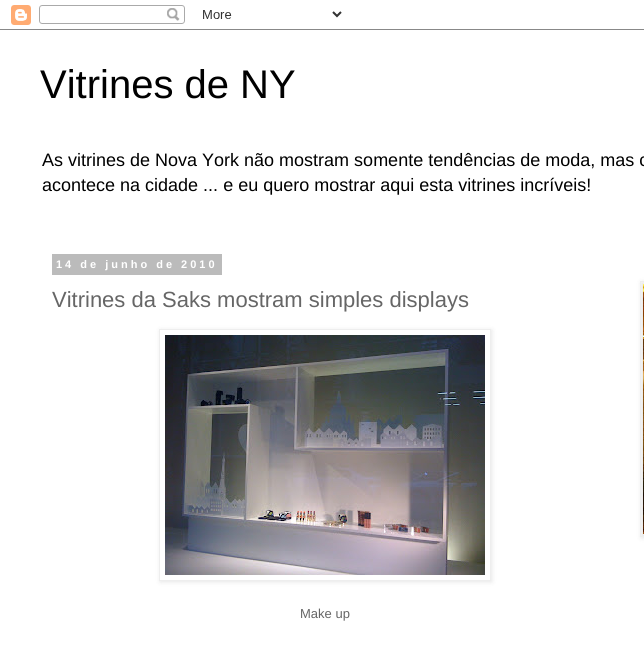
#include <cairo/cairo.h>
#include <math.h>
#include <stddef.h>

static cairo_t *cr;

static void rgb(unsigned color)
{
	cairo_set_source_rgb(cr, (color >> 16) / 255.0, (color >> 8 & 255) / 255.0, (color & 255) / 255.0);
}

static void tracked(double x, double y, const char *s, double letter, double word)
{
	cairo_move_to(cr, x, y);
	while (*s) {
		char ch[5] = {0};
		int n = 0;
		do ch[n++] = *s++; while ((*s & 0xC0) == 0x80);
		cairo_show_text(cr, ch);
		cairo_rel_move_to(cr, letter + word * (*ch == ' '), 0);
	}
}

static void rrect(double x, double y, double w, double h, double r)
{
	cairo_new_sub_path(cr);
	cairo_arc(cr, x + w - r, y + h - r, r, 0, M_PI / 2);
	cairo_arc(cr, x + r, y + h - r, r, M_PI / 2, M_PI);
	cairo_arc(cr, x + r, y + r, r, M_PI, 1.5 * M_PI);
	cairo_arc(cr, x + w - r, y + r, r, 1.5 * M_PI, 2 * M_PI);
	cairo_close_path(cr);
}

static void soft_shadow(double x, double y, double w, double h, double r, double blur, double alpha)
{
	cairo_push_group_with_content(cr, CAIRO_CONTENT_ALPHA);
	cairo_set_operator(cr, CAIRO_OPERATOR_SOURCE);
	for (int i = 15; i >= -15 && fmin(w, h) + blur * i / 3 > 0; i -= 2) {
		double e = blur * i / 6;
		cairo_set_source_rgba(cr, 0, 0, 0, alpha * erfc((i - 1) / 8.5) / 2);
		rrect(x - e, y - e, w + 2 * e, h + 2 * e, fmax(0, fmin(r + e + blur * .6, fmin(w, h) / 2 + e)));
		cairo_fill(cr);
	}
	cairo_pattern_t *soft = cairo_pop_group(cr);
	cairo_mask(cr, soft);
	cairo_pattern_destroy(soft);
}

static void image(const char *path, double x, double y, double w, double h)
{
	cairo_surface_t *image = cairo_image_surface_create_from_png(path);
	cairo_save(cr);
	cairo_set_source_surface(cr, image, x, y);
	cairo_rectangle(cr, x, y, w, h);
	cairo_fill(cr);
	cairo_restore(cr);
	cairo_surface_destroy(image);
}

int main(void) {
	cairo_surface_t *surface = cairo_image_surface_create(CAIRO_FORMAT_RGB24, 644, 648);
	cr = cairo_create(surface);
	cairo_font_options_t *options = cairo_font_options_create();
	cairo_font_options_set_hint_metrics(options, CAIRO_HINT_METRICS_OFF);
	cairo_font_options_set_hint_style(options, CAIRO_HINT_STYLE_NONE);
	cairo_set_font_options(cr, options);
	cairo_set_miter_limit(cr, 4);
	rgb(0xffffff);
	cairo_paint(cr);
	image("img/1.png", 0, 5, 644, 25);
	rgb(0xbbbbbb);
	cairo_rectangle(cr, 52, 254, 170, 21);
	cairo_fill(cr);
	cairo_save(cr);
	cairo_set_fill_rule(cr, CAIRO_FILL_RULE_EVEN_ODD);
	cairo_new_path(cr);
	cairo_move_to(cr, 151, 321);
	cairo_line_to(cr, 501, 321);
	cairo_line_to(cr, 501, 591);
	cairo_line_to(cr, 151, 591);
	cairo_close_path(cr);
	cairo_move_to(cr, 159, 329);
	cairo_line_to(cr, 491, 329);
	cairo_line_to(cr, 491, 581);
	cairo_line_to(cr, 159, 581);
	cairo_close_path(cr);
	cairo_clip(cr);
	rgb(0x000000);
	soft_shadow(160, 330, 332, 252, 0, 2.5, 0.1);
	cairo_restore(cr);
	cairo_rectangle(cr, 159.5, 329.5, 331, 251);
	rgb(0xeeeeee);
	cairo_set_line_width(cr, 1);
	cairo_stroke(cr);
	image("img/2.png", 165, 335, 320, 240);
	rgb(0x000000);
	soft_shadow(641, 282, 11, 256, 0, 2.5, 0.1);
	cairo_rectangle(cr, 640.5, 281.5, 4, 255);
	rgb(0xeeeeee);
	cairo_stroke(cr);
	image("img/3.png", 643, 284, 1, 250);
	cairo_select_font_face(cr, "Liberation Sans", CAIRO_FONT_SLANT_NORMAL, CAIRO_FONT_WEIGHT_NORMAL);
	cairo_set_font_size(cr, 40);
	rgb(0x000000);
	cairo_move_to(cr, 40, 98);
	cairo_show_text(cr, "Vitrines de NY");
	cairo_set_font_size(cr, 18);
	cairo_move_to(cr, 42, 166);
	cairo_show_text(cr, "As vitrines de Nova York não mostram somente tendências de moda, mas c");
	cairo_move_to(cr, 42, 191);
	cairo_show_text(cr, "acontece na cidade ... e eu quero mostrar aqui esta vitrines incríveis!");
	cairo_select_font_face(cr, "Liberation Sans", CAIRO_FONT_SLANT_NORMAL, CAIRO_FONT_WEIGHT_BOLD);
	cairo_set_font_size(cr, 11);
	rgb(0xffffff);
	tracked(56, 268, "14 de junho de 2010", 3, 0);
	cairo_select_font_face(cr, "Liberation Sans", CAIRO_FONT_SLANT_NORMAL, CAIRO_FONT_WEIGHT_NORMAL);
	cairo_set_font_size(cr, 22);
	rgb(0x666666);
	cairo_move_to(cr, 52, 307);
	cairo_show_text(cr, "Vitrines da Saks mostram simples displays");
	cairo_set_font_size(cr, 13);
	cairo_move_to(cr, 300, 618);
	cairo_show_text(cr, "Make up");
	cairo_surface_write_to_png(surface, "page.png");
	cairo_font_options_destroy(options);
	cairo_destroy(cr);
	cairo_surface_destroy(surface);
	return 0;
}
